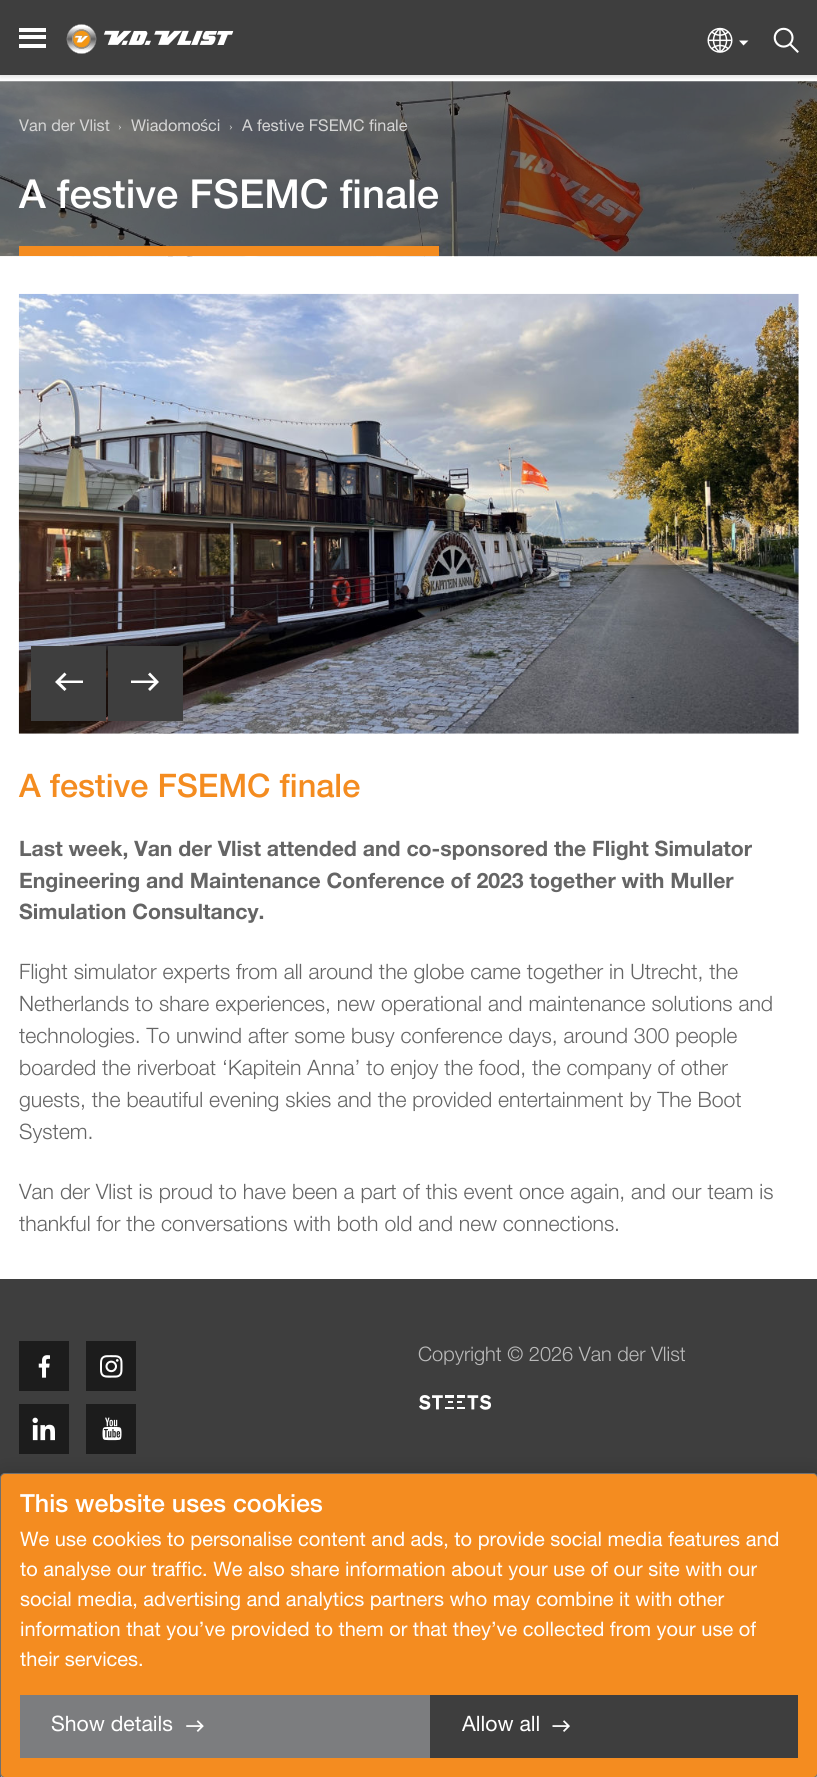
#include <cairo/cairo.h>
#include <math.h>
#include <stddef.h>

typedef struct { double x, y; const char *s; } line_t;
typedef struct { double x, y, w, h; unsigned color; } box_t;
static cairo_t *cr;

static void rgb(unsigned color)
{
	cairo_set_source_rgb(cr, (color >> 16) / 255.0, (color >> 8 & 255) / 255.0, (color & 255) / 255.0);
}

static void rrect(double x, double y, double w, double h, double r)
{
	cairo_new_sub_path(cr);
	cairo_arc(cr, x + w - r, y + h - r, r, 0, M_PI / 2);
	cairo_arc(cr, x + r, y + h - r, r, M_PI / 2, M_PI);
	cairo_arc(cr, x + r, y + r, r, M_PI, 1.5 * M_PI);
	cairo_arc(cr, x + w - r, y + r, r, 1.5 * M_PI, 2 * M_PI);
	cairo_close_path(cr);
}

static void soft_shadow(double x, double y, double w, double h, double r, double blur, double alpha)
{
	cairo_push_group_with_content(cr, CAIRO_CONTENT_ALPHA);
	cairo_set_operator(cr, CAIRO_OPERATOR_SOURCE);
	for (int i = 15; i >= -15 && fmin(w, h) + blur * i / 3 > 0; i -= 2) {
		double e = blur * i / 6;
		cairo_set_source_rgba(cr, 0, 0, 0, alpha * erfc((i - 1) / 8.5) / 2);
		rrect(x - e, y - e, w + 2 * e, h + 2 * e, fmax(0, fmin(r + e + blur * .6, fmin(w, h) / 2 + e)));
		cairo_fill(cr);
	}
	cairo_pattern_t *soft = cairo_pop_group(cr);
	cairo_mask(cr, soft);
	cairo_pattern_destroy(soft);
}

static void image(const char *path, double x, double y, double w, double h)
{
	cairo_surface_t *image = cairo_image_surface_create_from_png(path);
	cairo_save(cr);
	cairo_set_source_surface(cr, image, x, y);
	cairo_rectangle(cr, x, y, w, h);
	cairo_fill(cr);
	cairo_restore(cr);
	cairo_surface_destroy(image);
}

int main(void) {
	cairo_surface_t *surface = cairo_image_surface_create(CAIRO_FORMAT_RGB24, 817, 1777);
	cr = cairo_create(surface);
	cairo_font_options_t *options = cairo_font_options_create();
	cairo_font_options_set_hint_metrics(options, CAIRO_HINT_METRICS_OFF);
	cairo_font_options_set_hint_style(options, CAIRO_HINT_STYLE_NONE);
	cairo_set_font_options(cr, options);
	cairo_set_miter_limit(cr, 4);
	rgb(0xffffff);
	cairo_paint(cr);
	image("img/4.png", 0, 81, 817, 176);
	rgb(0x000000);
	soft_shadow(0, 1, 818, 75, 0, 3, 0.16);
	{
		static const box_t items[] = {
			{0, 0, 817, 75, 0x3e3e3e},
			{19, 35, 27, 4, 0xffffff},
			{19, 28, 27, 4, 0xffffff},
			{19, 44, 27, 4, 0xffffff},
		};
		for (size_t i = 0; i < sizeof items / sizeof *items; i++) {
			rgb(items[i].color);
			cairo_rectangle(cr, items[i].x, items[i].y, items[i].w, items[i].h);
			cairo_fill(cr);
		}
	}
	image("img/1.png", 66, 24, 168, 30);
	image("img/2.png", 707, 27, 26, 26);
	cairo_new_path(cr);
	cairo_move_to(cr, 743.5, 45.5);
	cairo_line_to(cr, 739, 40.5);
	cairo_line_to(cr, 748.5, 40.5);
	cairo_close_path(cr);
	cairo_fill(cr);
	image("img/3.png", 773, 27, 26, 26);
	rgb(0xf48c20);
	cairo_rectangle(cr, 19, 246, 420, 10);
	cairo_fill(cr);
	image("img/5.png", 18, 293, 781, 441);
	rgb(0x3e3e3e);
	cairo_rectangle(cr, 31, 646, 75, 75);
	cairo_fill(cr);
	rgb(0xffffff);
	cairo_new_path(cr);
	cairo_move_to(cr, 66.5, 689);
	cairo_line_to(cr, 64.5, 691);
	cairo_line_to(cr, 55, 682);
	cairo_line_to(cr, 64.5, 672.5);
	cairo_line_to(cr, 66.5, 674.5);
	cairo_line_to(cr, 60.5, 680.5);
	cairo_line_to(cr, 83, 680.5);
	cairo_line_to(cr, 83, 683);
	cairo_line_to(cr, 60.5, 683);
	cairo_close_path(cr);
	cairo_fill(cr);
	rgb(0x3e3e3e);
	cairo_rectangle(cr, 108, 646, 75, 75);
	cairo_fill(cr);
	rgb(0xffffff);
	cairo_new_path(cr);
	cairo_move_to(cr, 148, 689);
	cairo_line_to(cr, 150, 691);
	cairo_line_to(cr, 159, 682);
	cairo_line_to(cr, 150, 672.5);
	cairo_line_to(cr, 148, 674.5);
	cairo_line_to(cr, 154, 680.5);
	cairo_line_to(cr, 131, 680.5);
	cairo_line_to(cr, 131, 683);
	cairo_line_to(cr, 154, 683);
	cairo_close_path(cr);
	cairo_fill(cr);
	rgb(0x3e3e3e);
	cairo_rectangle(cr, 0, 1279, 817, 199);
	cairo_fill(cr);
	rgb(0x1c1c1c);
	cairo_rectangle(cr, 19, 1341, 50, 50);
	cairo_fill(cr);
	image("img/6.png", 38, 1355, 12, 23);
	cairo_rectangle(cr, 86, 1341, 50, 50);
	cairo_fill(cr);
	image("img/7.png", 100, 1355, 23, 23);
	cairo_rectangle(cr, 19, 1404, 50, 50);
	cairo_fill(cr);
	image("img/8.png", 32, 1417, 23, 24);
	cairo_rectangle(cr, 86, 1404, 50, 50);
	cairo_fill(cr);
	image("img/9.png", 102, 1417, 20, 24);
	image("img/10.png", 419, 1395, 72, 15);
	rgb(0x707070);
	cairo_rectangle(cr, 0, 1773, 1, 4);
	cairo_fill(cr);
	rgb(0x000000);
	soft_shadow(0, 1480, 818, 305, 5, 12.5, 0.3);
	rgb(0xf48c20);
	rrect(0.5, 1473.5, 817, 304, 4.5);
	cairo_fill_preserve(cr);
	rgb(0x707070);
	cairo_set_line_width(cr, 1);
	cairo_stroke(cr);
	rgb(0x7c7d7f);
	cairo_rectangle(cr, 20, 1695, 410, 63);
	cairo_fill(cr);
	image("img/11.png", 186, 1720, 18, 12);
	rgb(0x3e3e3e);
	cairo_rectangle(cr, 430, 1695, 368, 63);
	cairo_fill(cr);
	image("img/12.png", 552, 1720, 18, 12);
	cairo_select_font_face(cr, "Helvetica Neue", CAIRO_FONT_SLANT_NORMAL, CAIRO_FONT_WEIGHT_NORMAL);
	cairo_set_font_size(cr, 16.25);
	rgb(0xd5d5d5);
	cairo_move_to(cr, 19, 131);
	cairo_show_text(cr, "Van der Vlist");
	cairo_select_font_face(cr, "Liberation Serif", CAIRO_FONT_SLANT_NORMAL, CAIRO_FONT_WEIGHT_NORMAL);
	cairo_set_font_size(cr, 11);
	cairo_move_to(cr, 118, 130);
	cairo_show_text(cr, "›");
	cairo_select_font_face(cr, "Helvetica Neue", CAIRO_FONT_SLANT_NORMAL, CAIRO_FONT_WEIGHT_NORMAL);
	cairo_set_font_size(cr, 16.25);
	cairo_move_to(cr, 131, 131);
	cairo_show_text(cr, "Wiadomo");
	cairo_select_font_face(cr, "Liberation Sans", CAIRO_FONT_SLANT_NORMAL, CAIRO_FONT_WEIGHT_NORMAL);
	cairo_move_to(cr, 200, 131);
	cairo_show_text(cr, "ś");
	cairo_select_font_face(cr, "Helvetica Neue", CAIRO_FONT_SLANT_NORMAL, CAIRO_FONT_WEIGHT_NORMAL);
	cairo_move_to(cr, 208, 131);
	cairo_show_text(cr, "ci");
	cairo_select_font_face(cr, "Liberation Serif", CAIRO_FONT_SLANT_NORMAL, CAIRO_FONT_WEIGHT_NORMAL);
	cairo_set_font_size(cr, 11);
	cairo_move_to(cr, 229, 130);
	cairo_show_text(cr, "›");
	cairo_select_font_face(cr, "Helvetica Neue", CAIRO_FONT_SLANT_NORMAL, CAIRO_FONT_WEIGHT_NORMAL);
	cairo_set_font_size(cr, 16.25);
	cairo_move_to(cr, 242, 131);
	cairo_show_text(cr, "A festive FSEMC finale");
	cairo_select_font_face(cr, "Helvetica Neue Medium", CAIRO_FONT_SLANT_NORMAL, CAIRO_FONT_WEIGHT_NORMAL);
	cairo_set_font_size(cr, 40);
	rgb(0xffffff);
	cairo_move_to(cr, 19, 208);
	cairo_show_text(cr, "A festive FSEMC finale");
	cairo_set_font_size(cr, 32.5);
	rgb(0xf48c20);
	cairo_move_to(cr, 19, 797);
	cairo_show_text(cr, "A festive FSEMC finale");
	cairo_select_font_face(cr, "Helvetica Neue", CAIRO_FONT_SLANT_NORMAL, CAIRO_FONT_WEIGHT_BOLD);
	cairo_set_font_size(cr, 21.25);
	rgb(0x656565);
	{
		static const line_t items[] = {
			{19, 856, "Last week, Van der Vlist attended and co-sponsored the Flight Simulator"},
			{19, 888, "Engineering and Maintenance Conference of 2023 together with Muller"},
			{19, 919, "Simulation Consultancy."},
		};
		for (size_t i = 0; i < sizeof items / sizeof *items; i++) {
			cairo_move_to(cr, items[i].x, items[i].y);
			cairo_show_text(cr, items[i].s);
		}
	}
	cairo_select_font_face(cr, "Helvetica Neue Light", CAIRO_FONT_SLANT_NORMAL, CAIRO_FONT_WEIGHT_NORMAL);
	{
		static const line_t items[] = {
			{19, 979, "Flight simulator experts from all around the globe came together in Utrecht, the"},
			{19, 1011, "Netherlands to share experiences, new operational and maintenance solutions and"},
			{19, 1043, "technologies. To unwind after some busy conference days, around 300 people"},
			{19, 1075, "boarded the riverboat ‘Kapitein Anna’ to enjoy the food, the company of other"},
			{19, 1107, "guests, the beautiful evening skies and the provided entertainment by The Boot"},
			{19, 1139, "System."},
			{19, 1199, "Van der Vlist is proud to have been a part of this event once again, and our team is"},
			{19, 1231, "thankful for the conversations with both old and new connections."},
		};
		for (size_t i = 0; i < sizeof items / sizeof *items; i++) {
			cairo_move_to(cr, items[i].x, items[i].y);
			cairo_show_text(cr, items[i].s);
		}
	}
	cairo_set_font_size(cr, 20);
	rgb(0xbbbbbb);
	cairo_move_to(cr, 418, 1361);
	cairo_show_text(cr, "Copyright © 2026 Van der Vlist");
	cairo_select_font_face(cr, "Helvetica Neue Medium", CAIRO_FONT_SLANT_NORMAL, CAIRO_FONT_WEIGHT_NORMAL);
	cairo_set_font_size(cr, 25);
	rgb(0xffffff);
	cairo_move_to(cr, 20, 1512);
	cairo_show_text(cr, "This website uses cookies");
	cairo_select_font_face(cr, "Helvetica Neue", CAIRO_FONT_SLANT_NORMAL, CAIRO_FONT_WEIGHT_NORMAL);
	cairo_set_font_size(cr, 20);
	{
		static const line_t items[] = {
			{20, 1546, "We use cookies to personalise content and ads, to provide social media features and"},
			{20, 1576, "to analyse our traffic. We also share information about your use of our site with our"},
			{20, 1606, "social media, advertising and analytics partners who may combine it with other"},
			{20, 1636, "information that you’ve provided to them or that they’ve collected from your use of"},
			{20, 1666, "their services."},
		};
		for (size_t i = 0; i < sizeof items / sizeof *items; i++) {
			cairo_move_to(cr, items[i].x, items[i].y);
			cairo_show_text(cr, items[i].s);
		}
	}
	cairo_set_font_size(cr, 21.25);
	cairo_move_to(cr, 51, 1731);
	cairo_show_text(cr, "Show details");
	cairo_move_to(cr, 462, 1731);
	cairo_show_text(cr, "Allow all");
	cairo_surface_write_to_png(surface, "page.png");
	cairo_font_options_destroy(options);
	cairo_destroy(cr);
	cairo_surface_destroy(surface);
	return 0;
}
